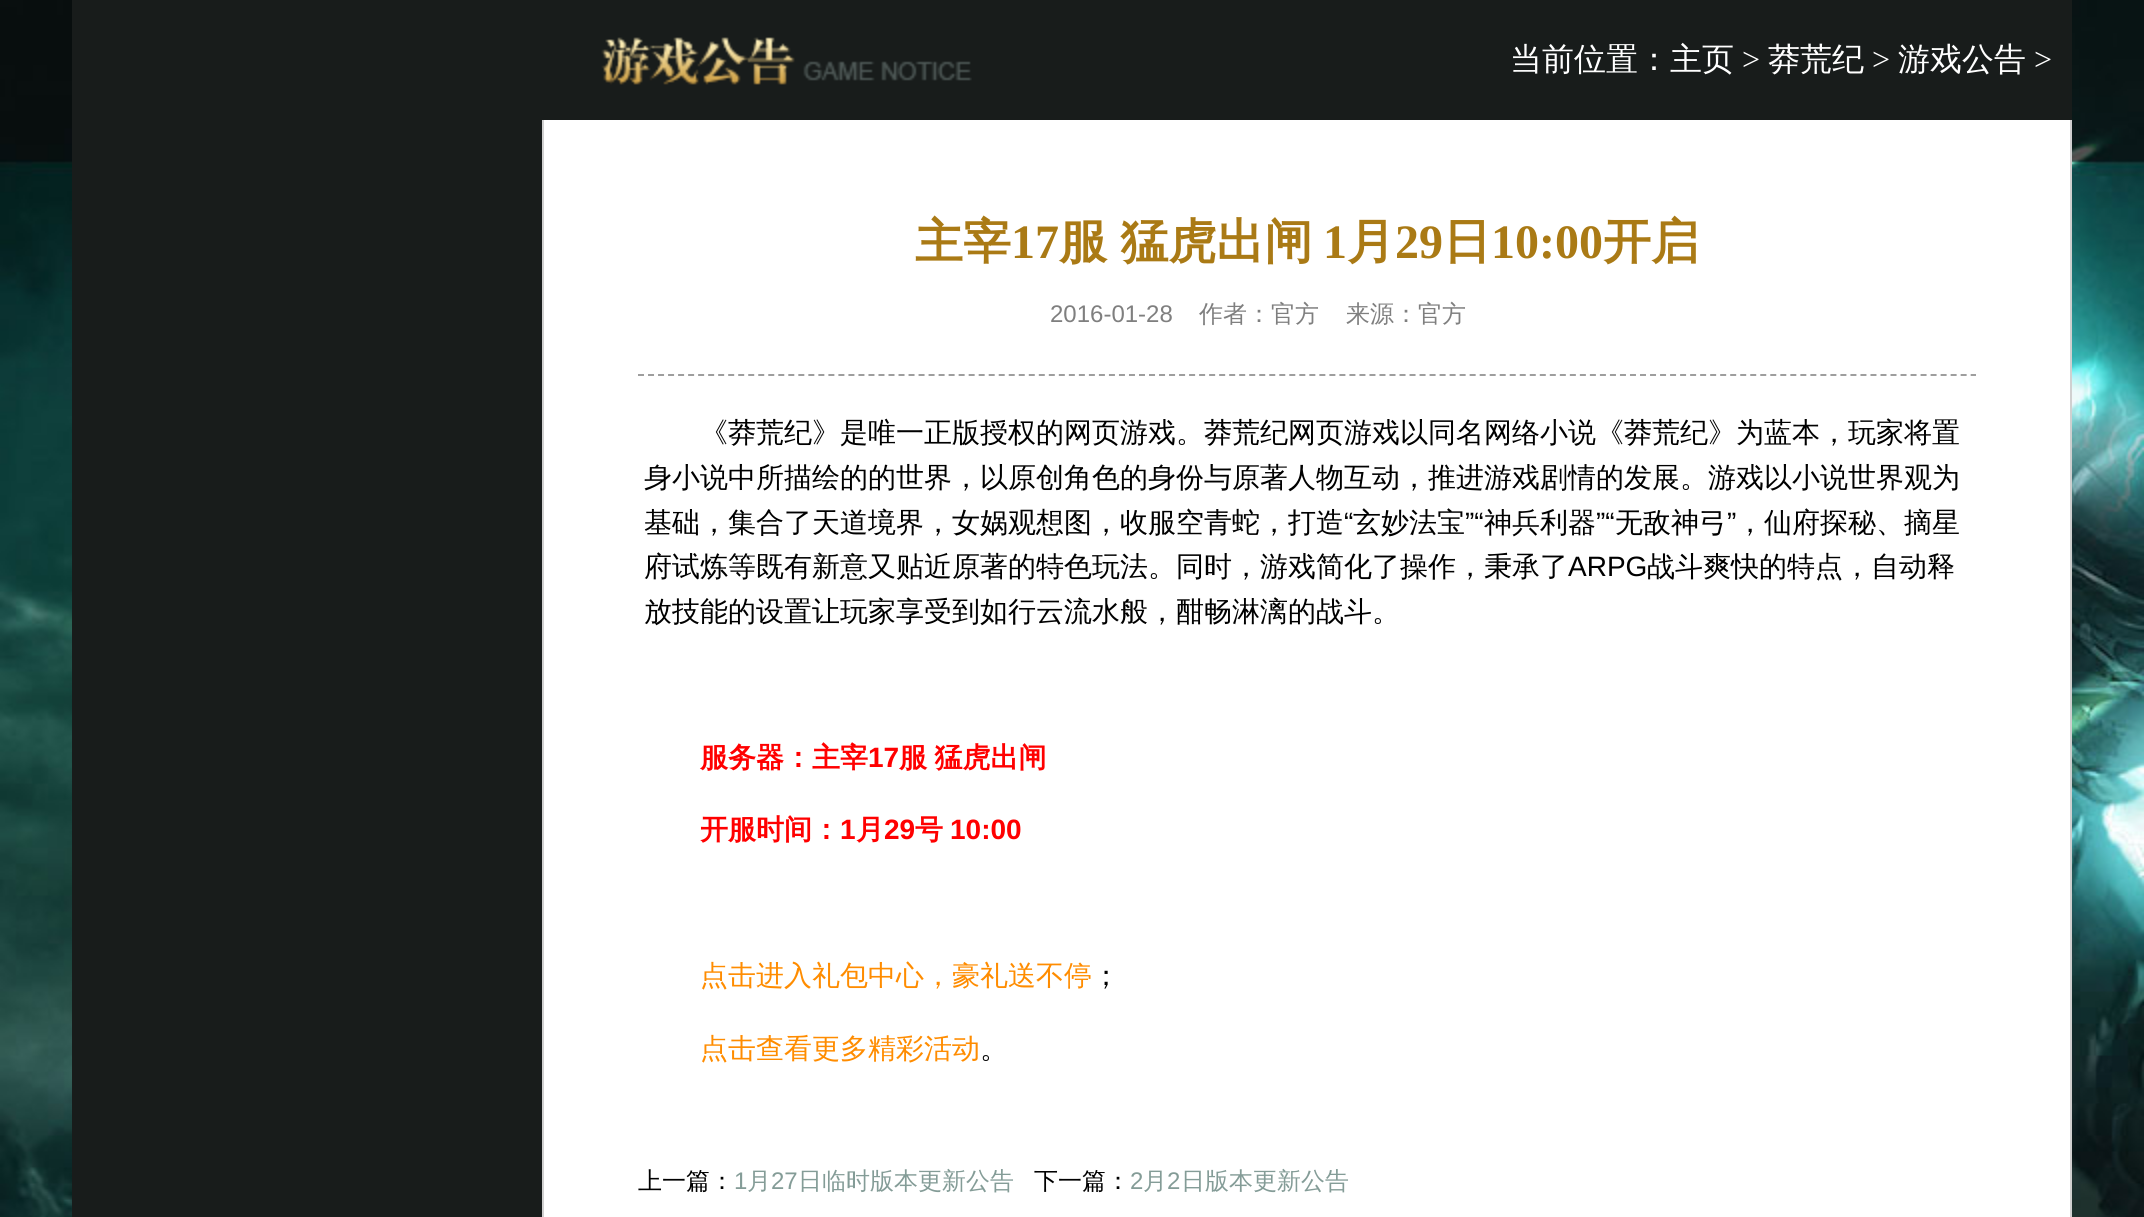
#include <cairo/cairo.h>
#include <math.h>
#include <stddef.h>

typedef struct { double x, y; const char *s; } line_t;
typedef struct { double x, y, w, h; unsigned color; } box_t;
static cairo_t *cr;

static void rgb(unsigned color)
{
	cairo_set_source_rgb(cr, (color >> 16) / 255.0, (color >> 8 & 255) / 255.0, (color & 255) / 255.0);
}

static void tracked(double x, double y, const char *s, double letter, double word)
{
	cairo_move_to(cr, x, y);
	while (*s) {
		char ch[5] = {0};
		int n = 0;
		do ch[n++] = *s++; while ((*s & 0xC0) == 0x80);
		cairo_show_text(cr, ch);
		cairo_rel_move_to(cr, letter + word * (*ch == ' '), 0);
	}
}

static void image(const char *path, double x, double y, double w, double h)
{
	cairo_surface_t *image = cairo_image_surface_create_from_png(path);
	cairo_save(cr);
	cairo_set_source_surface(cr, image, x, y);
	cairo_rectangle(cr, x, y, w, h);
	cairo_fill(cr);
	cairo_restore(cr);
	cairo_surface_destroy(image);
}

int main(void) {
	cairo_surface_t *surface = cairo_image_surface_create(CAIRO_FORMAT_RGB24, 2144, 1217);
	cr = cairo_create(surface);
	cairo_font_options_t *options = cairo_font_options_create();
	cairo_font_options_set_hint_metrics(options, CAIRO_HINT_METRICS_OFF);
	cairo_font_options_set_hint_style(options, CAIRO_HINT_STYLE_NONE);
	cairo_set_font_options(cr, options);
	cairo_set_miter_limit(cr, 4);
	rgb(0xffffff);
	cairo_paint(cr);
	image("img/1.png", 0, 0, 2144, 1217);
	rgb(0x181c1b);
	cairo_rectangle(cr, 72, 0, 2000, 1217);
	cairo_fill(cr);
	image("img/2.png", 601, 37, 371, 48);
	{
		static const box_t items[] = {
			{544, 120, 1526, 1097, 0xffffff},
			{2070, 120, 2, 1097, 0xd0d0d0},
			{542, 120, 2, 1097, 0xd0d0d0},
		};
		for (size_t i = 0; i < sizeof items / sizeof *items; i++) {
			rgb(items[i].color);
			cairo_rectangle(cr, items[i].x, items[i].y, items[i].w, items[i].h);
			cairo_fill(cr);
		}
	}
	cairo_new_path(cr);
	cairo_move_to(cr, 638, 375);
	cairo_line_to(cr, 1976, 375);
	rgb(0x9e9e9e);
	cairo_set_dash(cr, (double[]){6, 4.02}, 2, 0);
	cairo_stroke(cr);
	cairo_select_font_face(cr, "WenQuanYi Zen Hei Medium", CAIRO_FONT_SLANT_NORMAL, CAIRO_FONT_WEIGHT_NORMAL);
	cairo_set_font_size(cr, 32);
	rgb(0xffffff);
	cairo_move_to(cr, 1510, 70);
	cairo_show_text(cr, "当前位置：主页");
	cairo_select_font_face(cr, "Liberation Serif", CAIRO_FONT_SLANT_NORMAL, CAIRO_FONT_WEIGHT_NORMAL);
	cairo_move_to(cr, 1742, 70);
	cairo_show_text(cr, ">");
	cairo_select_font_face(cr, "WenQuanYi Zen Hei Medium", CAIRO_FONT_SLANT_NORMAL, CAIRO_FONT_WEIGHT_NORMAL);
	cairo_move_to(cr, 1768, 70);
	cairo_show_text(cr, "莽荒纪");
	cairo_select_font_face(cr, "Liberation Serif", CAIRO_FONT_SLANT_NORMAL, CAIRO_FONT_WEIGHT_NORMAL);
	cairo_move_to(cr, 1872, 70);
	cairo_show_text(cr, ">");
	cairo_select_font_face(cr, "WenQuanYi Zen Hei Medium", CAIRO_FONT_SLANT_NORMAL, CAIRO_FONT_WEIGHT_NORMAL);
	cairo_move_to(cr, 1898, 70);
	cairo_show_text(cr, "游戏公告");
	cairo_select_font_face(cr, "Liberation Serif", CAIRO_FONT_SLANT_NORMAL, CAIRO_FONT_WEIGHT_NORMAL);
	cairo_move_to(cr, 2034, 70);
	cairo_show_text(cr, ">");
	cairo_select_font_face(cr, "WenQuanYi Zen Hei", CAIRO_FONT_SLANT_NORMAL, CAIRO_FONT_WEIGHT_BOLD);
	cairo_set_font_size(cr, 48);
	rgb(0xaa7a15);
	cairo_move_to(cr, 915, 258);
	cairo_show_text(cr, "主宰");
	cairo_select_font_face(cr, "Liberation Serif", CAIRO_FONT_SLANT_NORMAL, CAIRO_FONT_WEIGHT_BOLD);
	cairo_move_to(cr, 1011, 258);
	cairo_show_text(cr, "17");
	cairo_select_font_face(cr, "WenQuanYi Zen Hei", CAIRO_FONT_SLANT_NORMAL, CAIRO_FONT_WEIGHT_BOLD);
	tracked(1059, 258, "服 猛虎出闸", 0, -1);
	cairo_select_font_face(cr, "Liberation Serif", CAIRO_FONT_SLANT_NORMAL, CAIRO_FONT_WEIGHT_BOLD);
	cairo_move_to(cr, 1323, 258);
	cairo_show_text(cr, "1");
	cairo_select_font_face(cr, "WenQuanYi Zen Hei", CAIRO_FONT_SLANT_NORMAL, CAIRO_FONT_WEIGHT_BOLD);
	cairo_move_to(cr, 1347, 258);
	cairo_show_text(cr, "月");
	cairo_select_font_face(cr, "Liberation Serif", CAIRO_FONT_SLANT_NORMAL, CAIRO_FONT_WEIGHT_BOLD);
	cairo_move_to(cr, 1395, 258);
	cairo_show_text(cr, "29");
	cairo_select_font_face(cr, "WenQuanYi Zen Hei", CAIRO_FONT_SLANT_NORMAL, CAIRO_FONT_WEIGHT_BOLD);
	cairo_move_to(cr, 1443, 258);
	cairo_show_text(cr, "日");
	cairo_select_font_face(cr, "Liberation Serif", CAIRO_FONT_SLANT_NORMAL, CAIRO_FONT_WEIGHT_BOLD);
	cairo_move_to(cr, 1491, 258);
	cairo_show_text(cr, "10:00");
	cairo_select_font_face(cr, "WenQuanYi Zen Hei", CAIRO_FONT_SLANT_NORMAL, CAIRO_FONT_WEIGHT_BOLD);
	cairo_move_to(cr, 1603, 258);
	cairo_show_text(cr, "开启");
	cairo_select_font_face(cr, "Liberation Sans", CAIRO_FONT_SLANT_NORMAL, CAIRO_FONT_WEIGHT_NORMAL);
	cairo_set_font_size(cr, 24);
	rgb(0x7f7f7f);
	cairo_move_to(cr, 1050, 322);
	cairo_show_text(cr, "2016-01-28");
	cairo_select_font_face(cr, "WenQuanYi Zen Hei Medium", CAIRO_FONT_SLANT_NORMAL, CAIRO_FONT_WEIGHT_NORMAL);
	cairo_move_to(cr, 1199, 322);
	cairo_show_text(cr, "作者：官方");
	cairo_move_to(cr, 1346, 322);
	cairo_show_text(cr, "来源：官方");
	cairo_set_font_size(cr, 28);
	rgb(0x000000);
	{
		static const line_t items[] = {
			{700, 442, "《莽荒纪》是唯一正版授权的网页游戏。莽荒纪网页游戏以同名网络小说《莽荒纪》为蓝本，玩家将置"},
			{644, 487, "身小说中所描绘的的世界，以原创角色的身份与原著人物互动，推进游戏剧情的发展。游戏以小说世界观为"},
			{644, 532, "基础，集合了天道境界，女娲观想图，收服空青蛇，打造"},
		};
		for (size_t i = 0; i < sizeof items / sizeof *items; i++) {
			cairo_move_to(cr, items[i].x, items[i].y);
			cairo_show_text(cr, items[i].s);
		}
	}
	cairo_select_font_face(cr, "Liberation Sans", CAIRO_FONT_SLANT_NORMAL, CAIRO_FONT_WEIGHT_NORMAL);
	cairo_move_to(cr, 1344, 532);
	cairo_show_text(cr, "“");
	cairo_select_font_face(cr, "WenQuanYi Zen Hei Medium", CAIRO_FONT_SLANT_NORMAL, CAIRO_FONT_WEIGHT_NORMAL);
	cairo_move_to(cr, 1353, 532);
	cairo_show_text(cr, "玄妙法宝");
	cairo_select_font_face(cr, "Liberation Sans", CAIRO_FONT_SLANT_NORMAL, CAIRO_FONT_WEIGHT_NORMAL);
	cairo_move_to(cr, 1465, 532);
	cairo_show_text(cr, "”“");
	cairo_select_font_face(cr, "WenQuanYi Zen Hei Medium", CAIRO_FONT_SLANT_NORMAL, CAIRO_FONT_WEIGHT_NORMAL);
	cairo_move_to(cr, 1484, 532);
	cairo_show_text(cr, "神兵利器");
	cairo_select_font_face(cr, "Liberation Sans", CAIRO_FONT_SLANT_NORMAL, CAIRO_FONT_WEIGHT_NORMAL);
	cairo_move_to(cr, 1596, 532);
	cairo_show_text(cr, "”“");
	cairo_select_font_face(cr, "WenQuanYi Zen Hei Medium", CAIRO_FONT_SLANT_NORMAL, CAIRO_FONT_WEIGHT_NORMAL);
	cairo_move_to(cr, 1615, 532);
	cairo_show_text(cr, "无敌神弓");
	cairo_select_font_face(cr, "Liberation Sans", CAIRO_FONT_SLANT_NORMAL, CAIRO_FONT_WEIGHT_NORMAL);
	cairo_move_to(cr, 1727, 532);
	cairo_show_text(cr, "”");
	cairo_select_font_face(cr, "WenQuanYi Zen Hei Medium", CAIRO_FONT_SLANT_NORMAL, CAIRO_FONT_WEIGHT_NORMAL);
	cairo_move_to(cr, 1736, 532);
	cairo_show_text(cr, "，仙府探秘、摘星");
	cairo_move_to(cr, 644, 576);
	cairo_show_text(cr, "府试炼等既有新意又贴近原著的特色玩法。同时，游戏简化了操作，秉承了");
	cairo_select_font_face(cr, "Liberation Sans", CAIRO_FONT_SLANT_NORMAL, CAIRO_FONT_WEIGHT_NORMAL);
	cairo_move_to(cr, 1568, 576);
	cairo_show_text(cr, "ARPG");
	cairo_select_font_face(cr, "WenQuanYi Zen Hei Medium", CAIRO_FONT_SLANT_NORMAL, CAIRO_FONT_WEIGHT_NORMAL);
	cairo_move_to(cr, 1647, 576);
	cairo_show_text(cr, "战斗爽快的特点，自动释");
	cairo_move_to(cr, 644, 621);
	cairo_show_text(cr, "放技能的设置让玩家享受到如行云流水般，酣畅淋漓的战斗。");
	cairo_select_font_face(cr, "WenQuanYi Zen Hei", CAIRO_FONT_SLANT_NORMAL, CAIRO_FONT_WEIGHT_BOLD);
	rgb(0xff0000);
	cairo_move_to(cr, 700, 767);
	cairo_show_text(cr, "服务器：主宰");
	cairo_select_font_face(cr, "Liberation Sans", CAIRO_FONT_SLANT_NORMAL, CAIRO_FONT_WEIGHT_BOLD);
	cairo_move_to(cr, 868, 767);
	cairo_show_text(cr, "17");
	cairo_select_font_face(cr, "WenQuanYi Zen Hei", CAIRO_FONT_SLANT_NORMAL, CAIRO_FONT_WEIGHT_BOLD);
	tracked(899, 767, "服 猛虎出闸", 0, -1);
	cairo_move_to(cr, 700, 839);
	cairo_show_text(cr, "开服时间：");
	cairo_select_font_face(cr, "Liberation Sans", CAIRO_FONT_SLANT_NORMAL, CAIRO_FONT_WEIGHT_BOLD);
	cairo_move_to(cr, 840, 839);
	cairo_show_text(cr, "1");
	cairo_select_font_face(cr, "WenQuanYi Zen Hei", CAIRO_FONT_SLANT_NORMAL, CAIRO_FONT_WEIGHT_BOLD);
	cairo_move_to(cr, 856, 839);
	cairo_show_text(cr, "月");
	cairo_select_font_face(cr, "Liberation Sans", CAIRO_FONT_SLANT_NORMAL, CAIRO_FONT_WEIGHT_BOLD);
	cairo_move_to(cr, 884, 839);
	cairo_show_text(cr, "29");
	cairo_select_font_face(cr, "WenQuanYi Zen Hei", CAIRO_FONT_SLANT_NORMAL, CAIRO_FONT_WEIGHT_BOLD);
	cairo_move_to(cr, 915, 839);
	cairo_show_text(cr, "号");
	cairo_select_font_face(cr, "Liberation Sans", CAIRO_FONT_SLANT_NORMAL, CAIRO_FONT_WEIGHT_BOLD);
	cairo_move_to(cr, 950, 839);
	cairo_show_text(cr, "10:00");
	cairo_select_font_face(cr, "WenQuanYi Zen Hei Medium", CAIRO_FONT_SLANT_NORMAL, CAIRO_FONT_WEIGHT_NORMAL);
	rgb(0xff8c00);
	cairo_move_to(cr, 700, 985);
	cairo_show_text(cr, "点击进入礼包中心，豪礼送不停");
	rgb(0x000000);
	cairo_move_to(cr, 1092, 985);
	cairo_show_text(cr, "；");
	rgb(0xff8c00);
	cairo_move_to(cr, 700, 1058);
	cairo_show_text(cr, "点击查看更多精彩活动");
	rgb(0x000000);
	cairo_move_to(cr, 980, 1058);
	cairo_show_text(cr, "。");
	cairo_set_font_size(cr, 24);
	cairo_move_to(cr, 638, 1189);
	cairo_show_text(cr, "上一篇：");
	cairo_select_font_face(cr, "Liberation Sans", CAIRO_FONT_SLANT_NORMAL, CAIRO_FONT_WEIGHT_NORMAL);
	rgb(0x849c97);
	cairo_move_to(cr, 734, 1189);
	cairo_show_text(cr, "1");
	cairo_select_font_face(cr, "WenQuanYi Zen Hei Medium", CAIRO_FONT_SLANT_NORMAL, CAIRO_FONT_WEIGHT_NORMAL);
	cairo_move_to(cr, 747, 1189);
	cairo_show_text(cr, "月");
	cairo_select_font_face(cr, "Liberation Sans", CAIRO_FONT_SLANT_NORMAL, CAIRO_FONT_WEIGHT_NORMAL);
	cairo_move_to(cr, 771, 1189);
	cairo_show_text(cr, "27");
	cairo_select_font_face(cr, "WenQuanYi Zen Hei Medium", CAIRO_FONT_SLANT_NORMAL, CAIRO_FONT_WEIGHT_NORMAL);
	cairo_move_to(cr, 798, 1189);
	cairo_show_text(cr, "日临时版本更新公告");
	rgb(0x000000);
	cairo_move_to(cr, 1034, 1189);
	cairo_show_text(cr, "下一篇：");
	cairo_select_font_face(cr, "Liberation Sans", CAIRO_FONT_SLANT_NORMAL, CAIRO_FONT_WEIGHT_NORMAL);
	rgb(0x849c97);
	cairo_move_to(cr, 1130, 1189);
	cairo_show_text(cr, "2");
	cairo_select_font_face(cr, "WenQuanYi Zen Hei Medium", CAIRO_FONT_SLANT_NORMAL, CAIRO_FONT_WEIGHT_NORMAL);
	cairo_move_to(cr, 1143, 1189);
	cairo_show_text(cr, "月");
	cairo_select_font_face(cr, "Liberation Sans", CAIRO_FONT_SLANT_NORMAL, CAIRO_FONT_WEIGHT_NORMAL);
	cairo_move_to(cr, 1167, 1189);
	cairo_show_text(cr, "2");
	cairo_select_font_face(cr, "WenQuanYi Zen Hei Medium", CAIRO_FONT_SLANT_NORMAL, CAIRO_FONT_WEIGHT_NORMAL);
	cairo_move_to(cr, 1181, 1189);
	cairo_show_text(cr, "日版本更新公告");
	cairo_surface_write_to_png(surface, "page.png");
	cairo_font_options_destroy(options);
	cairo_destroy(cr);
	cairo_surface_destroy(surface);
	return 0;
}
